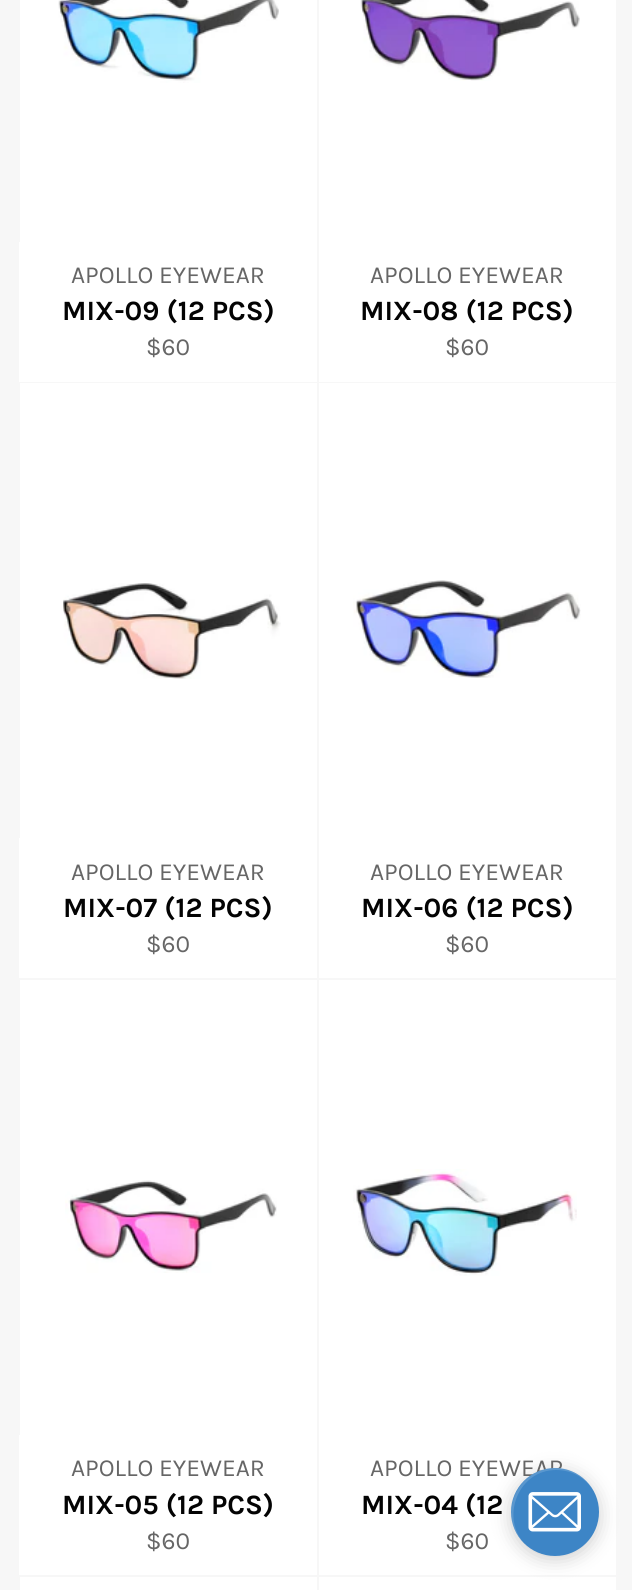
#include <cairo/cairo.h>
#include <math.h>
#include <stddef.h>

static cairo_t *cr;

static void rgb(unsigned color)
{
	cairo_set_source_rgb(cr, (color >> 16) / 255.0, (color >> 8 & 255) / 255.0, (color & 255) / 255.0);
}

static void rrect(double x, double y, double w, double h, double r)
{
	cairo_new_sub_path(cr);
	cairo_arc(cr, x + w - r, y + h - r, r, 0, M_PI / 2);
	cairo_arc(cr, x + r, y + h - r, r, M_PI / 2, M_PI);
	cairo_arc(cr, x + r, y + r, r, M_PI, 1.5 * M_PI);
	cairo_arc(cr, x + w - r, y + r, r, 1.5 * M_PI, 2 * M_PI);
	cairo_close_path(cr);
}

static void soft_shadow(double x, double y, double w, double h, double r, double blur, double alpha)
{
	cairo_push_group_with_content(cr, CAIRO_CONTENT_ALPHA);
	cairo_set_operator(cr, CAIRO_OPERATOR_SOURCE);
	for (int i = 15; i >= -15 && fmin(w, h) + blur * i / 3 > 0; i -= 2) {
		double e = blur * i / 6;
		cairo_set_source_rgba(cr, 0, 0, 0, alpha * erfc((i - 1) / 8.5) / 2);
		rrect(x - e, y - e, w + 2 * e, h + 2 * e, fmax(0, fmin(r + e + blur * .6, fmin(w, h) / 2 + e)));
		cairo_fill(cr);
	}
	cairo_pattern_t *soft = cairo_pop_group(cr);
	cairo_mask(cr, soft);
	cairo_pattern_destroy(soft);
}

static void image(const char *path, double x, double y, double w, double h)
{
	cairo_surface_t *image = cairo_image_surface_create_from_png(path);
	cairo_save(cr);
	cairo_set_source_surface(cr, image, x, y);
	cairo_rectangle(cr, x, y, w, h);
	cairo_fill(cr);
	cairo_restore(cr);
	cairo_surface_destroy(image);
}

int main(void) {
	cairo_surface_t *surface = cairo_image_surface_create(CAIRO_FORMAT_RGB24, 632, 1590);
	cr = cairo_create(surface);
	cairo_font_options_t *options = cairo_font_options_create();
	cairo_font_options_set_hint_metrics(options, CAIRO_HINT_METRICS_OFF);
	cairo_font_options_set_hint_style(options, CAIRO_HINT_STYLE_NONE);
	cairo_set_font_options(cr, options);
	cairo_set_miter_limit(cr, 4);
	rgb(0xf7f7f7);
	cairo_paint(cr);
	rgb(0xffffff);
	cairo_rectangle(cr, 20, 0, 297, 242);
	cairo_fill(cr);
	image("img/1.png", 58, 0, 221, 83);
	cairo_rectangle(cr, 19, 242, 298, 140);
	cairo_fill(cr);
	cairo_rectangle(cr, 319, 0, 297, 382);
	cairo_fill(cr);
	image("img/2.png", 360, 0, 220, 81);
	cairo_rectangle(cr, 20, 383, 297, 455);
	cairo_fill(cr);
	image("img/3.png", 63, 583, 218, 96);
	cairo_rectangle(cr, 19, 838, 298, 140);
	cairo_fill(cr);
	cairo_rectangle(cr, 319, 383, 297, 595);
	cairo_fill(cr);
	image("img/4.png", 353, 580, 228, 98);
	cairo_rectangle(cr, 20, 980, 297, 455);
	cairo_fill(cr);
	image("img/5.png", 65, 1180, 212, 93);
	cairo_rectangle(cr, 19, 1435, 298, 140);
	cairo_fill(cr);
	cairo_rectangle(cr, 319, 980, 297, 595);
	cairo_fill(cr);
	image("img/6.png", 353, 1169, 224, 107);
	cairo_rectangle(cr, 20, 1577, 297, 13);
	cairo_fill(cr);
	cairo_rectangle(cr, 319, 1577, 297, 13);
	cairo_fill(cr);
	rgb(0x808080);
	soft_shadow(511, 1472, 88, 87, 43.5, 9.5, 0.4);
	cairo_select_font_face(cr, "Karla", CAIRO_FONT_SLANT_NORMAL, CAIRO_FONT_WEIGHT_NORMAL);
	cairo_set_font_size(cr, 24.5);
	rgb(0x666666);
	cairo_move_to(cr, 71, 283);
	cairo_show_text(cr, "APOLLO EYEWEAR");
	cairo_select_font_face(cr, "Karla", CAIRO_FONT_SLANT_NORMAL, CAIRO_FONT_WEIGHT_BOLD);
	cairo_set_font_size(cr, 28);
	rgb(0x030303);
	cairo_move_to(cr, 62, 320);
	cairo_show_text(cr, "MIX-09 (12 PCS)");
	cairo_select_font_face(cr, "Karla", CAIRO_FONT_SLANT_NORMAL, CAIRO_FONT_WEIGHT_NORMAL);
	cairo_set_font_size(cr, 24.5);
	rgb(0x666666);
	cairo_move_to(cr, 146, 355);
	cairo_show_text(cr, "$60");
	cairo_move_to(cr, 370, 283);
	cairo_show_text(cr, "APOLLO EYEWEAR");
	cairo_select_font_face(cr, "Karla", CAIRO_FONT_SLANT_NORMAL, CAIRO_FONT_WEIGHT_BOLD);
	cairo_set_font_size(cr, 28);
	rgb(0x030303);
	cairo_move_to(cr, 360, 320);
	cairo_show_text(cr, "MIX-08 (12 PCS)");
	cairo_select_font_face(cr, "Karla", CAIRO_FONT_SLANT_NORMAL, CAIRO_FONT_WEIGHT_NORMAL);
	cairo_set_font_size(cr, 24.5);
	rgb(0x666666);
	cairo_move_to(cr, 445, 355);
	cairo_show_text(cr, "$60");
	cairo_move_to(cr, 71, 880);
	cairo_show_text(cr, "APOLLO EYEWEAR");
	cairo_select_font_face(cr, "Karla", CAIRO_FONT_SLANT_NORMAL, CAIRO_FONT_WEIGHT_BOLD);
	cairo_set_font_size(cr, 28);
	rgb(0x030303);
	cairo_move_to(cr, 63, 917);
	cairo_show_text(cr, "MIX-07 (12 PCS)");
	cairo_select_font_face(cr, "Karla", CAIRO_FONT_SLANT_NORMAL, CAIRO_FONT_WEIGHT_NORMAL);
	cairo_set_font_size(cr, 24.5);
	rgb(0x666666);
	cairo_move_to(cr, 146, 952);
	cairo_show_text(cr, "$60");
	cairo_move_to(cr, 370, 880);
	cairo_show_text(cr, "APOLLO EYEWEAR");
	cairo_select_font_face(cr, "Karla", CAIRO_FONT_SLANT_NORMAL, CAIRO_FONT_WEIGHT_BOLD);
	cairo_set_font_size(cr, 28);
	rgb(0x030303);
	cairo_move_to(cr, 361, 917);
	cairo_show_text(cr, "MIX-06 (12 PCS)");
	cairo_select_font_face(cr, "Karla", CAIRO_FONT_SLANT_NORMAL, CAIRO_FONT_WEIGHT_NORMAL);
	cairo_set_font_size(cr, 24.5);
	rgb(0x666666);
	cairo_move_to(cr, 445, 952);
	cairo_show_text(cr, "$60");
	cairo_move_to(cr, 71, 1476);
	cairo_show_text(cr, "APOLLO EYEWEAR");
	cairo_select_font_face(cr, "Karla", CAIRO_FONT_SLANT_NORMAL, CAIRO_FONT_WEIGHT_BOLD);
	cairo_set_font_size(cr, 28);
	rgb(0x030303);
	cairo_move_to(cr, 62, 1514);
	cairo_show_text(cr, "MIX-05 (12 PCS)");
	cairo_select_font_face(cr, "Karla", CAIRO_FONT_SLANT_NORMAL, CAIRO_FONT_WEIGHT_NORMAL);
	cairo_set_font_size(cr, 24.5);
	rgb(0x666666);
	cairo_move_to(cr, 146, 1549);
	cairo_show_text(cr, "$60");
	cairo_move_to(cr, 370, 1476);
	cairo_show_text(cr, "APOLLO EYEWEAR");
	cairo_select_font_face(cr, "Karla", CAIRO_FONT_SLANT_NORMAL, CAIRO_FONT_WEIGHT_BOLD);
	cairo_set_font_size(cr, 28);
	rgb(0x030303);
	cairo_move_to(cr, 361, 1514);
	cairo_show_text(cr, "MIX-04 (12");
	cairo_select_font_face(cr, "Karla", CAIRO_FONT_SLANT_NORMAL, CAIRO_FONT_WEIGHT_NORMAL);
	cairo_set_font_size(cr, 24.5);
	rgb(0x666666);
	cairo_move_to(cr, 445, 1549);
	cairo_show_text(cr, "$60");
	rgb(0x3d85c6);
	cairo_new_path(cr);
	cairo_arc(cr, 555, 1512, 44, 0, 2 * M_PI);
	cairo_fill(cr);
	cairo_set_source_rgba(cr, 1, 1, 1, 0.15);
	cairo_new_path(cr);
	cairo_move_to(cr, 556, 1470);
	cairo_curve_to(cr, 573, 1470, 587, 1479, 594, 1492);
	cairo_curve_to(cr, 590, 1483, 582, 1476, 573, 1472);
	cairo_curve_to(cr, 529, 1452, 491, 1508, 523, 1542);
	cairo_curve_to(cr, 501, 1515, 519, 1470, 556, 1470);
	cairo_close_path(cr);
	cairo_fill(cr);
	image("img/7.png", 528, 1492, 53, 40);
	cairo_surface_write_to_png(surface, "page.png");
	cairo_font_options_destroy(options);
	cairo_destroy(cr);
	cairo_surface_destroy(surface);
	return 0;
}
